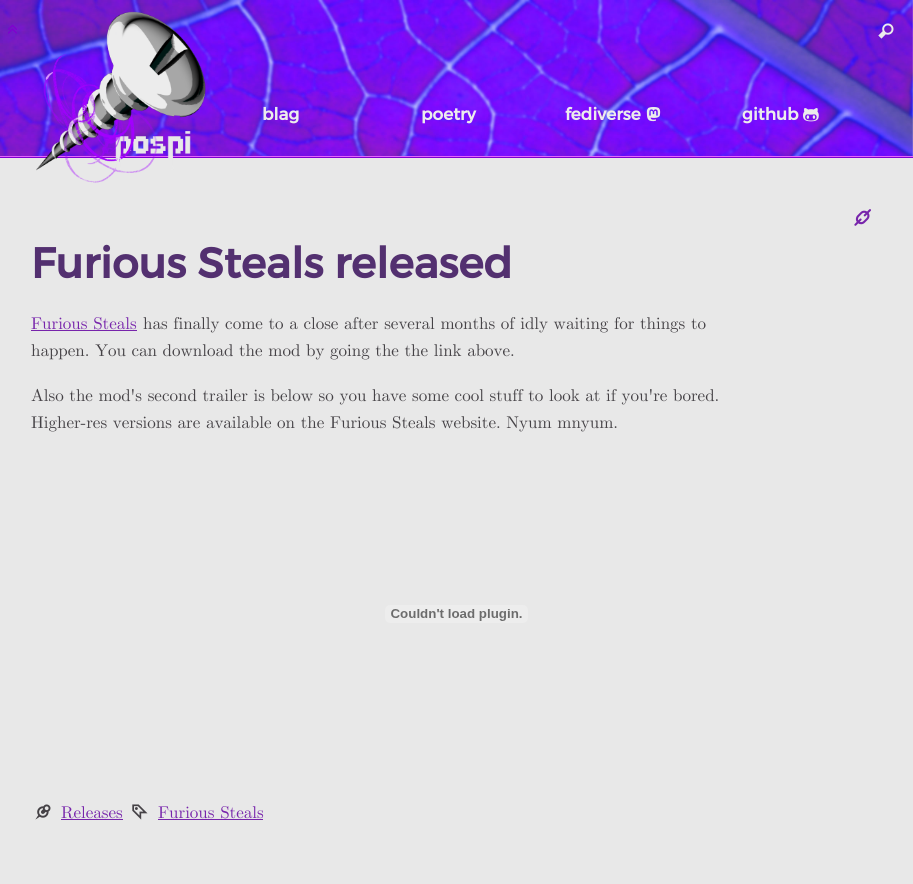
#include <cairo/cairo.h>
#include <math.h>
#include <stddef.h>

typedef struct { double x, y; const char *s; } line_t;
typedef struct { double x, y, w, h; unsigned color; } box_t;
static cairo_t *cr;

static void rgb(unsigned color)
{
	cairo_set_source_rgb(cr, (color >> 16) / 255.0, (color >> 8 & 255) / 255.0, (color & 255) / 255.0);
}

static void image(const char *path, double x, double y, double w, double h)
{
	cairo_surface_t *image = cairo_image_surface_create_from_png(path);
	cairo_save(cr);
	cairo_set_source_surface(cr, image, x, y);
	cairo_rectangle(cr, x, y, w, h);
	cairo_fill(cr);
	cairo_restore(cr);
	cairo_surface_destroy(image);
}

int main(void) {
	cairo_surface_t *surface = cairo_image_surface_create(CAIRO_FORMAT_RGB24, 913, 884);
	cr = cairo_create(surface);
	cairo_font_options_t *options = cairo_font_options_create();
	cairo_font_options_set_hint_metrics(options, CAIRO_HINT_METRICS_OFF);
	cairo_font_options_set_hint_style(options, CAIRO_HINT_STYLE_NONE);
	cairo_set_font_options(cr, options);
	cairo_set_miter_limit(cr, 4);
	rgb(0xffffff);
	cairo_paint(cr);
	image("img/1.png", 0, 0, 913, 156);
	image("img/2.png", 8, 24, 9, 10);
	{
		static const box_t items[] = {
			{0, 157, 913, 1, 0x8000cf},
			{0, 156, 913, 1, 0xe362ff},
			{0, 158, 913, 726, 0xe8e8e8},
		};
		for (size_t i = 0; i < sizeof items / sizeof *items; i++) {
			rgb(items[i].color);
			cairo_rectangle(cr, items[i].x, items[i].y, items[i].w, items[i].h);
			cairo_fill(cr);
		}
	}
	image("img/3.png", 36, 11, 170, 172);
	image("img/4.png", 878, 23, 16, 16);
	image("img/5.png", 646, 107, 15, 15);
	image("img/6.png", 803, 108, 16, 14);
	image("img/7.png", 854, 209, 17, 17);
	rgb(0x7724ab);
	cairo_rectangle(cr, 31, 330, 106, 1);
	cairo_fill(cr);
	image("img/8.png", 385, 605, 143, 18);
	image("img/9.png", 35, 804, 16, 16);
	cairo_rectangle(cr, 61, 819, 62, 1);
	cairo_fill(cr);
	image("img/10.png", 132, 804, 16, 16);
	cairo_rectangle(cr, 158, 819, 105, 1);
	cairo_fill(cr);
	cairo_select_font_face(cr, "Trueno", CAIRO_FONT_SLANT_NORMAL, CAIRO_FONT_WEIGHT_BOLD);
	cairo_set_font_size(cr, 17);
	rgb(0xececec);
	{
		static const line_t items[] = {
			{262, 120, "blag"},
			{421, 120, "poetry"},
			{565, 120, "fediverse"},
			{742, 120, "github"},
		};
		for (size_t i = 0; i < sizeof items / sizeof *items; i++) {
			cairo_move_to(cr, items[i].x, items[i].y);
			cairo_show_text(cr, items[i].s);
		}
	}
	cairo_set_font_size(cr, 42.5);
	rgb(0x533070);
	cairo_move_to(cr, 31, 278);
	cairo_show_text(cr, "Furious Steals released");
	cairo_select_font_face(cr, "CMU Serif", CAIRO_FONT_SLANT_NORMAL, CAIRO_FONT_WEIGHT_NORMAL);
	cairo_set_font_size(cr, 17);
	rgb(0x7724ab);
	cairo_move_to(cr, 31, 329);
	cairo_show_text(cr, "Furious Steals");
	rgb(0x454246);
	{
		static const line_t items[] = {
			{143, 329, "has finally come to a close after several months of idly waiting for things to"},
			{31, 356, "happen. You can download the mod by going the the link above."},
			{31, 401, "Also the mod's second trailer is below so you have some cool stuff to look at if you're bored."},
			{31, 428, "Higher-res versions are available on the Furious Steals website. Nyum mnyum."},
		};
		for (size_t i = 0; i < sizeof items / sizeof *items; i++) {
			cairo_move_to(cr, items[i].x, items[i].y);
			cairo_show_text(cr, items[i].s);
		}
	}
	rgb(0x7724ab);
	cairo_move_to(cr, 61, 818);
	cairo_show_text(cr, "Releases");
	cairo_move_to(cr, 158, 818);
	cairo_show_text(cr, "Furious Steals");
	cairo_surface_write_to_png(surface, "page.png");
	cairo_font_options_destroy(options);
	cairo_destroy(cr);
	cairo_surface_destroy(surface);
	return 0;
}
